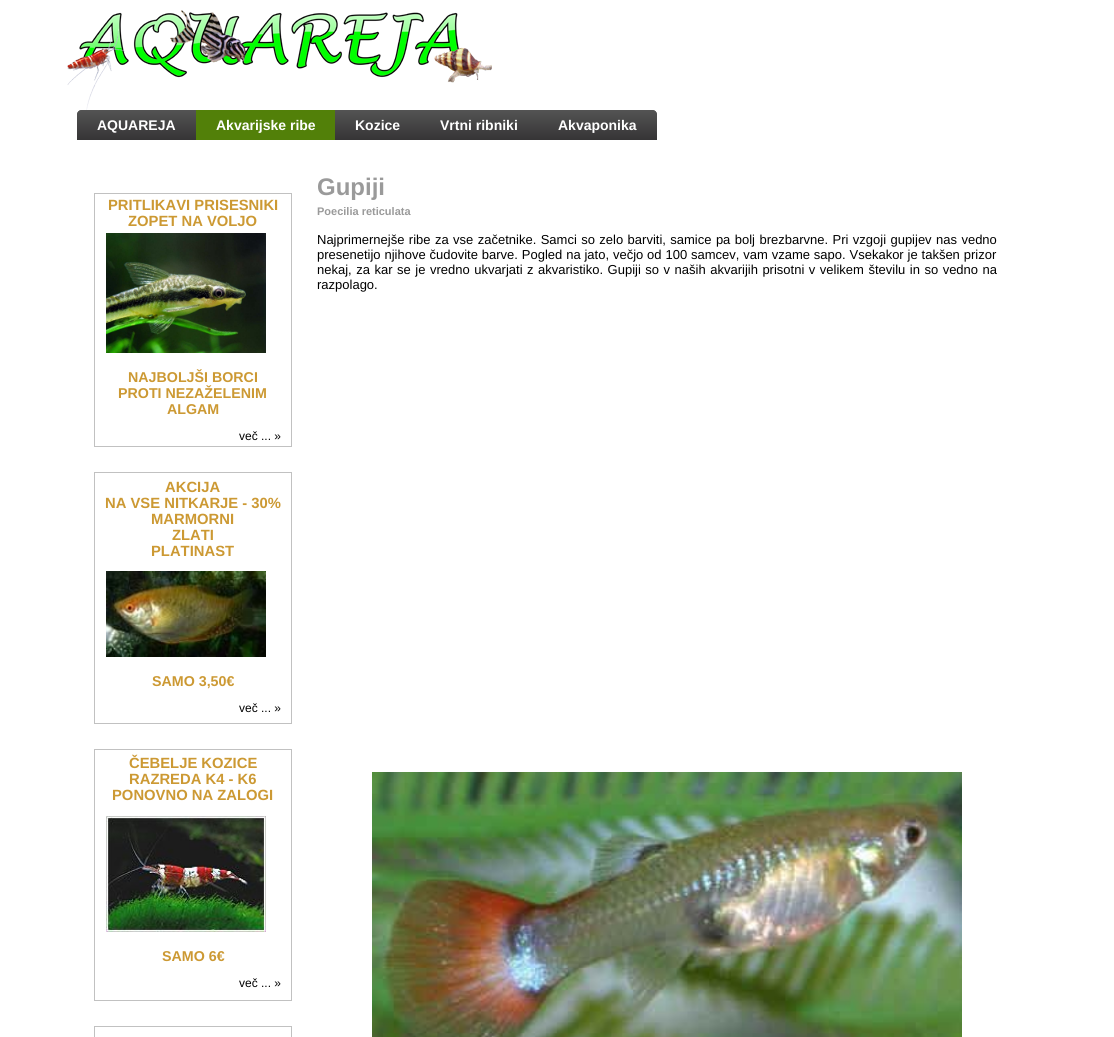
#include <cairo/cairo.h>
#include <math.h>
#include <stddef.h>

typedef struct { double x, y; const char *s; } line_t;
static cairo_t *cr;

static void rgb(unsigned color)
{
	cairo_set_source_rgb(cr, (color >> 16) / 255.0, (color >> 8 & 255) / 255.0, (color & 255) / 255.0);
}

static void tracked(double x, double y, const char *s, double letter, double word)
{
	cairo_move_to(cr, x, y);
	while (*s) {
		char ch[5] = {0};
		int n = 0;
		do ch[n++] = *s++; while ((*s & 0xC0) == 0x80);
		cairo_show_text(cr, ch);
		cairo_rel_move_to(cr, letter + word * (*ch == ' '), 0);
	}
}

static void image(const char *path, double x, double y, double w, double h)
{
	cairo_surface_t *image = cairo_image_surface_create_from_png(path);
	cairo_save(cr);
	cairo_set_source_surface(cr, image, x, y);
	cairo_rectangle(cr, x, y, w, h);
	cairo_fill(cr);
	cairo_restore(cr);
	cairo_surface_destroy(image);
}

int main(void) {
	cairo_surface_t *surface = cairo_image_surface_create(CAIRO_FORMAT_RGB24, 1114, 1037);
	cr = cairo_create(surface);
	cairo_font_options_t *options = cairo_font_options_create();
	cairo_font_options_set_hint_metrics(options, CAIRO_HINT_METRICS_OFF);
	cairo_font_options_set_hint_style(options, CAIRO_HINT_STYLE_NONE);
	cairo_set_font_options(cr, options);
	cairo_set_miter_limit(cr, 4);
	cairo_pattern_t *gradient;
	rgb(0xffffff);
	cairo_paint(cr);
	image("img/1.png", 67, 10, 425, 100);
	gradient = cairo_pattern_create_linear(367, 110, 367, 140);
	cairo_pattern_add_color_stop_rgba(gradient, 0, 0.329, 0.329, 0.329, 1);
	cairo_pattern_add_color_stop_rgba(gradient, 1, 0.208, 0.204, 0.208, 1);
	cairo_set_source(cr, gradient);
	cairo_pattern_destroy(gradient);
	cairo_new_path(cr);
	cairo_move_to(cr, 82, 110);
	cairo_line_to(cr, 652, 110);
	cairo_curve_to(cr, 655, 110, 657, 112, 657, 115);
	cairo_line_to(cr, 657, 140);
	cairo_line_to(cr, 77, 140);
	cairo_line_to(cr, 77, 115);
	cairo_curve_to(cr, 77, 112, 79, 110, 82, 110);
	cairo_close_path(cr);
	cairo_fill(cr);
	gradient = cairo_pattern_create_linear(137, 110, 137, 140);
	cairo_pattern_add_color_stop_rgba(gradient, 0, 0.329, 0.329, 0.329, 1);
	cairo_pattern_add_color_stop_rgba(gradient, 1, 0.208, 0.204, 0.208, 1);
	cairo_set_source(cr, gradient);
	cairo_pattern_destroy(gradient);
	cairo_new_path(cr);
	cairo_move_to(cr, 82, 110);
	cairo_line_to(cr, 196, 110);
	cairo_line_to(cr, 196, 140);
	cairo_line_to(cr, 77, 140);
	cairo_line_to(cr, 77, 115);
	cairo_curve_to(cr, 77, 112, 79, 110, 82, 110);
	cairo_close_path(cr);
	cairo_fill(cr);
	rgb(0x528009);
	cairo_rectangle(cr, 196, 110, 139, 30);
	cairo_fill(cr);
	gradient = cairo_pattern_create_linear(598, 110, 598, 140);
	cairo_pattern_add_color_stop_rgba(gradient, 0, 0.329, 0.329, 0.329, 1);
	cairo_pattern_add_color_stop_rgba(gradient, 1, 0.208, 0.204, 0.208, 1);
	cairo_set_source(cr, gradient);
	cairo_pattern_destroy(gradient);
	cairo_new_path(cr);
	cairo_move_to(cr, 538, 110);
	cairo_line_to(cr, 652, 110);
	cairo_curve_to(cr, 655, 110, 657, 112, 657, 115);
	cairo_line_to(cr, 657, 140);
	cairo_line_to(cr, 538, 140);
	cairo_close_path(cr);
	cairo_fill(cr);
	cairo_rectangle(cr, 94.5, 193.5, 197, 253);
	rgb(0xc1c1c1);
	cairo_set_line_width(cr, 1);
	cairo_stroke(cr);
	image("img/2.png", 106, 233, 160, 120);
	cairo_rectangle(cr, 94.5, 472.5, 197, 251);
	cairo_stroke(cr);
	image("img/3.png", 106, 571, 160, 86);
	cairo_rectangle(cr, 94.5, 749.5, 197, 251);
	cairo_stroke(cr);
	image("img/4.png", 106, 816, 160, 116);
	cairo_rectangle(cr, 94.5, 1026.5, 197, 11);
	cairo_stroke(cr);
	image("img/5.png", 372, 772, 590, 265);
	cairo_select_font_face(cr, "Liberation Sans", CAIRO_FONT_SLANT_NORMAL, CAIRO_FONT_WEIGHT_BOLD);
	cairo_set_font_size(cr, 14);
	rgb(0xffffff);
	{
		static const line_t items[] = {
			{97, 130, "AQUAREJA"},
			{216, 130, "Akvarijske ribe"},
			{355, 130, "Kozice"},
			{440, 130, "Vrtni ribniki"},
			{558, 130, "Akvaponika"},
		};
		for (size_t i = 0; i < sizeof items / sizeof *items; i++) {
			cairo_move_to(cr, items[i].x, items[i].y);
			cairo_show_text(cr, items[i].s);
		}
	}
	cairo_set_font_size(cr, 14.8);
	rgb(0xcc9933);
	cairo_move_to(cr, 108, 210);
	cairo_show_text(cr, "PRITLIKAVI PRISESNIKI");
	cairo_move_to(cr, 128, 226);
	cairo_show_text(cr, "ZOPET NA VOLJO");
	cairo_set_font_size(cr, 14.25);
	{
		static const line_t items[] = {
			{128, 382, "NAJBOLJŠI BORCI"},
			{118, 398, "PROTI NEZAŽELENIM"},
			{167, 414, "ALGAM"},
		};
		for (size_t i = 0; i < sizeof items / sizeof *items; i++) {
			cairo_move_to(cr, items[i].x, items[i].y);
			cairo_show_text(cr, items[i].s);
		}
	}
	cairo_select_font_face(cr, "Liberation Sans", CAIRO_FONT_SLANT_NORMAL, CAIRO_FONT_WEIGHT_NORMAL);
	cairo_set_font_size(cr, 12);
	rgb(0x000000);
	cairo_move_to(cr, 239, 440);
	cairo_show_text(cr, "več ... »");
	cairo_select_font_face(cr, "Liberation Sans", CAIRO_FONT_SLANT_NORMAL, CAIRO_FONT_WEIGHT_BOLD);
	cairo_set_font_size(cr, 14.8);
	rgb(0xcc9933);
	{
		static const line_t items[] = {
			{165, 492, "AKCIJA"},
			{105, 508, "NA VSE NITKARJE - 30%"},
			{151, 524, "MARMORNI"},
			{172, 540, "ZLATI"},
			{151, 556, "PLATINAST"},
		};
		for (size_t i = 0; i < sizeof items / sizeof *items; i++) {
			cairo_move_to(cr, items[i].x, items[i].y);
			cairo_show_text(cr, items[i].s);
		}
	}
	cairo_set_font_size(cr, 14.25);
	cairo_move_to(cr, 152, 686);
	cairo_show_text(cr, "SAMO 3,50€");
	cairo_select_font_face(cr, "Liberation Sans", CAIRO_FONT_SLANT_NORMAL, CAIRO_FONT_WEIGHT_NORMAL);
	cairo_set_font_size(cr, 12);
	rgb(0x000000);
	cairo_move_to(cr, 239, 712);
	cairo_show_text(cr, "več ... »");
	cairo_select_font_face(cr, "Liberation Sans", CAIRO_FONT_SLANT_NORMAL, CAIRO_FONT_WEIGHT_BOLD);
	cairo_set_font_size(cr, 14.8);
	rgb(0xcc9933);
	{
		static const line_t items[] = {
			{129, 768, "ČEBELJE KOZICE"},
			{129, 784, "RAZREDA K4 - K6"},
			{112, 800, "PONOVNO NA ZALOGI"},
		};
		for (size_t i = 0; i < sizeof items / sizeof *items; i++) {
			cairo_move_to(cr, items[i].x, items[i].y);
			cairo_show_text(cr, items[i].s);
		}
	}
	cairo_set_font_size(cr, 14.25);
	cairo_move_to(cr, 162, 961);
	cairo_show_text(cr, "SAMO 6€");
	cairo_select_font_face(cr, "Liberation Sans", CAIRO_FONT_SLANT_NORMAL, CAIRO_FONT_WEIGHT_NORMAL);
	cairo_set_font_size(cr, 12);
	rgb(0x000000);
	cairo_move_to(cr, 239, 987);
	cairo_show_text(cr, "več ... »");
	cairo_select_font_face(cr, "Liberation Sans", CAIRO_FONT_SLANT_NORMAL, CAIRO_FONT_WEIGHT_BOLD);
	cairo_set_font_size(cr, 24);
	rgb(0x9a9a9a);
	cairo_move_to(cr, 317, 195);
	cairo_show_text(cr, "Gupiji");
	cairo_set_font_size(cr, 11);
	cairo_move_to(cr, 317, 215);
	cairo_show_text(cr, "Poecilia reticulata");
	cairo_select_font_face(cr, "Liberation Sans", CAIRO_FONT_SLANT_NORMAL, CAIRO_FONT_WEIGHT_NORMAL);
	cairo_set_font_size(cr, 13);
	rgb(0x000000);
	tracked(317, 244, "Najprimernejše ribe za vse začetnike. Samci so zelo barviti, samice pa bolj brezbarvne. Pri vzgoji gupijev nas vedno", 0, 0.8);
	tracked(317, 259, "presenetijo njihove čudovite barve. Pogled na jato, večjo od 100 samcev, vam vzame sapo. Vsekakor je takšen prizor", 0, 0.25);
	tracked(317, 274, "nekaj, za kar se je vredno ukvarjati z akvaristiko. Gupiji so v naših akvarijih prisotni v velikem številu in so vedno na", 0, 0.9);
	cairo_move_to(cr, 317, 289);
	cairo_show_text(cr, "razpolago.");
	cairo_surface_write_to_png(surface, "page.png");
	cairo_font_options_destroy(options);
	cairo_destroy(cr);
	cairo_surface_destroy(surface);
	return 0;
}
